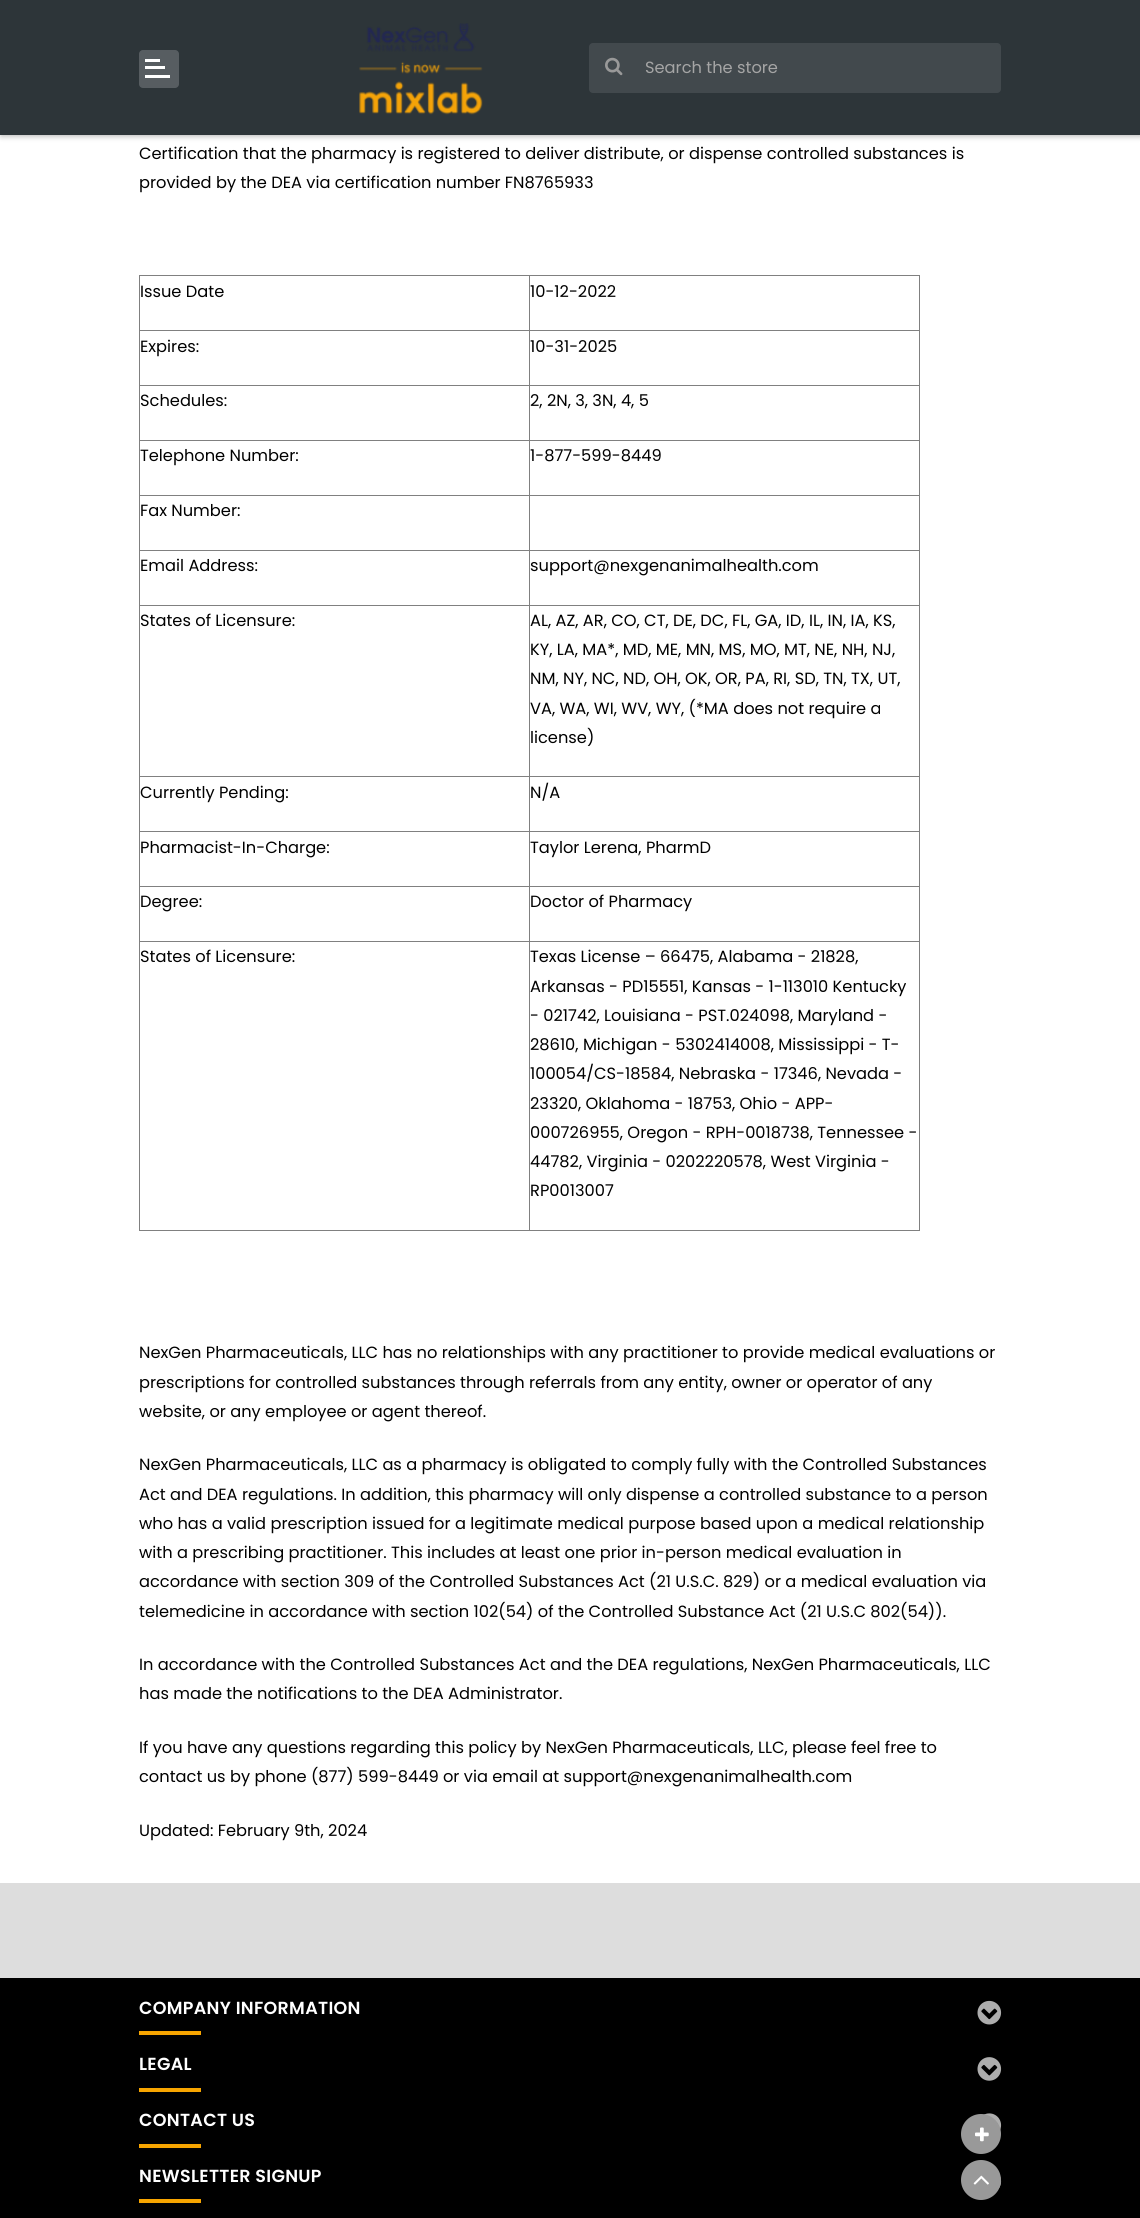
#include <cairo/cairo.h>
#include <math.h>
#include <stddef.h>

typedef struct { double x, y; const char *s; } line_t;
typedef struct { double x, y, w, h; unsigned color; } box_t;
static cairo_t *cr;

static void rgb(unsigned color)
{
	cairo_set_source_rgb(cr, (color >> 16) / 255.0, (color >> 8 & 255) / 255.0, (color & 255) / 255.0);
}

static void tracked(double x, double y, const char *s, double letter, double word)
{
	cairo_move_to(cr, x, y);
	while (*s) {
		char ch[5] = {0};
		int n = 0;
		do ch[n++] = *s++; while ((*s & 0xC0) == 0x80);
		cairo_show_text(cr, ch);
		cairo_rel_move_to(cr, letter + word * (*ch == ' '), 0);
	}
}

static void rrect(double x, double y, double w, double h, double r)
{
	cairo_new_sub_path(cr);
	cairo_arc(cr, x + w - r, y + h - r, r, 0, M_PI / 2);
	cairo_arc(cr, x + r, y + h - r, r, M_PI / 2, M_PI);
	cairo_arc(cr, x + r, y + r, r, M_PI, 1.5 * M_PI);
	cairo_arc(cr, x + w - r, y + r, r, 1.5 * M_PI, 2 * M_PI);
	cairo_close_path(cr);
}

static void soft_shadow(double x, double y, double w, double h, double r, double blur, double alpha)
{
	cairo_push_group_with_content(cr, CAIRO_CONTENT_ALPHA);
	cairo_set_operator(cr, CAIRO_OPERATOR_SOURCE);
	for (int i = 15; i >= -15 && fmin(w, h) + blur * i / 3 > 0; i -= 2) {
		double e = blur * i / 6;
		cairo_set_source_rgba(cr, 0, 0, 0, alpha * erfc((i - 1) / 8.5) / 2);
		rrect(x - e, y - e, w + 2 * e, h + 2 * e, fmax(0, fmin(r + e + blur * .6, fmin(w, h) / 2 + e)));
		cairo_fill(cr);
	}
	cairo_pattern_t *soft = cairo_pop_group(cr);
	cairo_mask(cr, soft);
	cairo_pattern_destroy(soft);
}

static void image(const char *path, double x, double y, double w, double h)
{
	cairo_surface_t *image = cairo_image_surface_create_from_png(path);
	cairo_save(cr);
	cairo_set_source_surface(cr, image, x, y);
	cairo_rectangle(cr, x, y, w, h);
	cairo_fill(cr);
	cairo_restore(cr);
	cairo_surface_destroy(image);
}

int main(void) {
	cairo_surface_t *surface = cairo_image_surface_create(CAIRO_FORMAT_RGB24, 1140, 2218);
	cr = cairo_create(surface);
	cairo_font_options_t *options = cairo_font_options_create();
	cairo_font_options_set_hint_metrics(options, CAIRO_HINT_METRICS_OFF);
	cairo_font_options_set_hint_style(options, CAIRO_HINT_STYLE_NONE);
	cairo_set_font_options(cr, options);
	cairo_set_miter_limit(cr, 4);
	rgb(0xffffff);
	cairo_paint(cr);
	rgb(0x000000);
	soft_shadow(1, 1, 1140, 135, 0, 3, 0.3);
	rgb(0x2d3539);
	cairo_rectangle(cr, 0, 0, 1140, 135);
	cairo_fill(cr);
	rgb(0x575d61);
	rrect(139, 50, 40, 38, 4);
	cairo_fill(cr);
	{
		static const box_t items[] = {
			{145, 66, 20, 3, 0xffffff},
			{145, 59, 15, 3, 0xffffff},
			{145, 75, 25, 3, 0xffffff},
		};
		for (size_t i = 0; i < sizeof items / sizeof *items; i++) {
			rgb(items[i].color);
			cairo_rectangle(cr, items[i].x, items[i].y, items[i].w, items[i].h);
			cairo_fill(cr);
		}
	}
	image("img/1.png", 359, 23, 124, 92);
	rgb(0x42494d);
	rrect(589, 43, 412, 50, 4);
	cairo_fill(cr);
	image("img/2.png", 605, 57, 18, 19);
	{
		static const box_t items[] = {
			{139, 275, 781, 1, 0x808080},
			{919, 275, 1, 956, 0x808080},
			{139, 1230, 781, 1, 0x808080},
			{139, 275, 1, 956, 0x808080},
			{529, 330, 391, 1, 0x808080},
			{529, 385, 391, 1, 0x808080},
			{529, 440, 391, 1, 0x808080},
			{529, 495, 391, 1, 0x808080},
			{529, 550, 391, 1, 0x808080},
			{529, 605, 391, 1, 0x808080},
			{529, 776, 391, 1, 0x808080},
			{529, 831, 391, 1, 0x808080},
			{529, 886, 391, 1, 0x808080},
			{529, 941, 391, 1, 0x808080},
			{529, 941, 1, 290, 0x808080},
			{139, 941, 391, 1, 0x808080},
			{529, 886, 1, 57, 0x808080},
			{139, 886, 391, 1, 0x808080},
			{529, 831, 1, 57, 0x808080},
			{139, 831, 391, 1, 0x808080},
			{529, 776, 1, 57, 0x808080},
			{139, 776, 391, 1, 0x808080},
			{529, 605, 1, 173, 0x808080},
			{139, 605, 391, 1, 0x808080},
			{529, 550, 1, 56, 0x808080},
			{139, 550, 391, 1, 0x808080},
			{529, 495, 1, 56, 0x808080},
			{139, 495, 391, 1, 0x808080},
			{529, 440, 1, 56, 0x808080},
			{139, 440, 391, 1, 0x808080},
			{529, 385, 1, 56, 0x808080},
			{139, 385, 391, 1, 0x808080},
			{529, 330, 1, 56, 0x808080},
			{139, 330, 391, 1, 0x808080},
			{529, 275, 1, 56, 0x808080},
			{0, 1883, 1140, 95, 0xdddddd},
			{0, 1978, 1140, 240, 0x000000},
		};
		for (size_t i = 0; i < sizeof items / sizeof *items; i++) {
			rgb(items[i].color);
			cairo_rectangle(cr, items[i].x, items[i].y, items[i].w, items[i].h);
			cairo_fill(cr);
		}
	}
	image("img/3.png", 977, 2000, 25, 25);
	rgb(0xf7a500);
	cairo_rectangle(cr, 139, 2031, 62, 4);
	cairo_fill(cr);
	image("img/4.png", 977, 2057, 25, 24);
	cairo_rectangle(cr, 139, 2088, 62, 4);
	cairo_fill(cr);
	image("img/5.png", 983, 2113, 19, 17);
	cairo_rectangle(cr, 139, 2144, 62, 4);
	cairo_fill(cr);
	image("img/6.png", 997, 2176, 5, 15);
	cairo_rectangle(cr, 139, 2199, 62, 4);
	cairo_fill(cr);
	rgb(0x999999);
	cairo_arc(cr, 981, 2134, 20, 0, 2 * M_PI);
	cairo_fill(cr);
	image("img/7.png", 975, 2127, 14, 15);
	cairo_arc(cr, 981, 2180, 20, 0, 2 * M_PI);
	cairo_fill(cr);
	image("img/8.png", 973, 2175, 16, 10);
	cairo_select_font_face(cr, "Poppins", CAIRO_FONT_SLANT_NORMAL, CAIRO_FONT_WEIGHT_NORMAL);
	cairo_set_font_size(cr, 16.25);
	rgb(0xa5a5a5);
	cairo_move_to(cr, 645, 73);
	cairo_show_text(cr, "Search the store");
	rgb(0x000000);
	{
		static const line_t items[] = {
			{139, 159, "Certification that the pharmacy is registered to deliver distribute, or dispense controlled substances is"},
			{139, 188, "provided by the DEA via certification number FN8765933"},
			{140, 297, "Issue Date"},
			{530, 297, "10-12-2022"},
			{140, 352, "Expires:"},
			{530, 352, "10-31-2025"},
			{140, 406, "Schedules:"},
			{530, 406, "2, 2N, 3, 3N, 4, 5"},
			{140, 461, "Telephone Number:"},
			{530, 461, "1-877-599-8449"},
			{140, 516, "Fax Number:"},
			{140, 571, "Email Address:"},
			{530, 571, "support@nexgenanimalhealth.com"},
			{140, 626, "States of Licensure:"},
			{530, 626, "AL, AZ, AR, CO, CT, DE, DC, FL, GA, ID, IL, IN, IA, KS,"},
			{530, 655, "KY, LA, MA*, MD, ME, MN, MS, MO, MT, NE, NH, NJ,"},
			{530, 684, "NM, NY, NC, ND, OH, OK, OR, PA, RI, SD, TN, TX, UT,"},
			{530, 714, "VA, WA, WI, WV, WY, (*MA does not require a"},
			{530, 743, "license)"},
			{140, 798, "Currently Pending:"},
			{530, 798, "N/A"},
			{140, 853, "Pharmacist-In-Charge:"},
			{530, 853, "Taylor Lerena, PharmD"},
			{140, 907, "Degree:"},
			{530, 907, "Doctor of Pharmacy"},
			{140, 962, "States of Licensure:"},
			{530, 962, "Texas License – 66475, Alabama - 21828,"},
			{530, 992, "Arkansas - PD15551, Kansas - 1-113010 Kentucky"},
			{530, 1021, "- 021742, Louisiana - PST.024098, Maryland -"},
			{530, 1050, "28610, Michigan - 5302414008, Mississippi - T-"},
			{530, 1079, "100054/CS-18584, Nebraska - 17346, Nevada -"},
			{530, 1109, "23320, Oklahoma - 18753, Ohio - APP-"},
			{530, 1138, "000726955, Oregon - RPH-0018738, Tennessee -"},
			{530, 1167, "44782, Virginia - 0202220578, West Virginia -"},
			{530, 1196, "RP0013007"},
			{139, 1358, "NexGen Pharmaceuticals, LLC has no relationships with any practitioner to provide medical evaluations or"},
			{139, 1388, "prescriptions for controlled substances through referrals from any entity, owner or operator of any"},
			{139, 1417, "website, or any employee or agent thereof."},
			{139, 1470, "NexGen Pharmaceuticals, LLC as a pharmacy is obligated to comply fully with the Controlled Substances"},
			{139, 1500, "Act and DEA regulations. In addition, this pharmacy will only dispense a controlled substance to a person"},
			{139, 1529, "who has a valid prescription issued for a legitimate medical purpose based upon a medical relationship"},
			{139, 1558, "with a prescribing practitioner. This includes at least one prior in-person medical evaluation in"},
			{139, 1587, "accordance with section 309 of the Controlled Substances Act (21 U.S.C. 829) or a medical evaluation via"},
			{139, 1617, "telemedicine in accordance with section 102(54) of the Controlled Substance Act (21 U.S.C 802(54))."},
			{139, 1670, "In accordance with the Controlled Substances Act and the DEA regulations, NexGen Pharmaceuticals, LLC"},
			{139, 1699, "has made the notifications to the DEA Administrator."},
			{139, 1753, "If you have any questions regarding this policy by NexGen Pharmaceuticals, LLC, please feel free to"},
			{139, 1782, "contact us by phone (877) 599-8449 or via email at support@nexgenanimalhealth.com"},
			{139, 1836, "Updated: February 9th, 2024"},
		};
		for (size_t i = 0; i < sizeof items / sizeof *items; i++) {
			cairo_move_to(cr, items[i].x, items[i].y);
			cairo_show_text(cr, items[i].s);
		}
	}
	cairo_select_font_face(cr, "Poppins SemiBold", CAIRO_FONT_SLANT_NORMAL, CAIRO_FONT_WEIGHT_NORMAL);
	cairo_set_font_size(cr, 17.5);
	rgb(0xffffff);
	{
		static const line_t items[] = {
			{139, 2014, "COMPANY INFORMATION"},
			{139, 2070, "LEGAL"},
			{139, 2126, "CONTACT US"},
			{139, 2182, "NEWSLETTER SIGNUP"},
		};
		for (size_t i = 0; i < sizeof items / sizeof *items; i++) {
			tracked(items[i].x, items[i].y, items[i].s, 0.3, 0);
		}
	}
	cairo_surface_write_to_png(surface, "page.png");
	cairo_font_options_destroy(options);
	cairo_destroy(cr);
	cairo_surface_destroy(surface);
	return 0;
}
